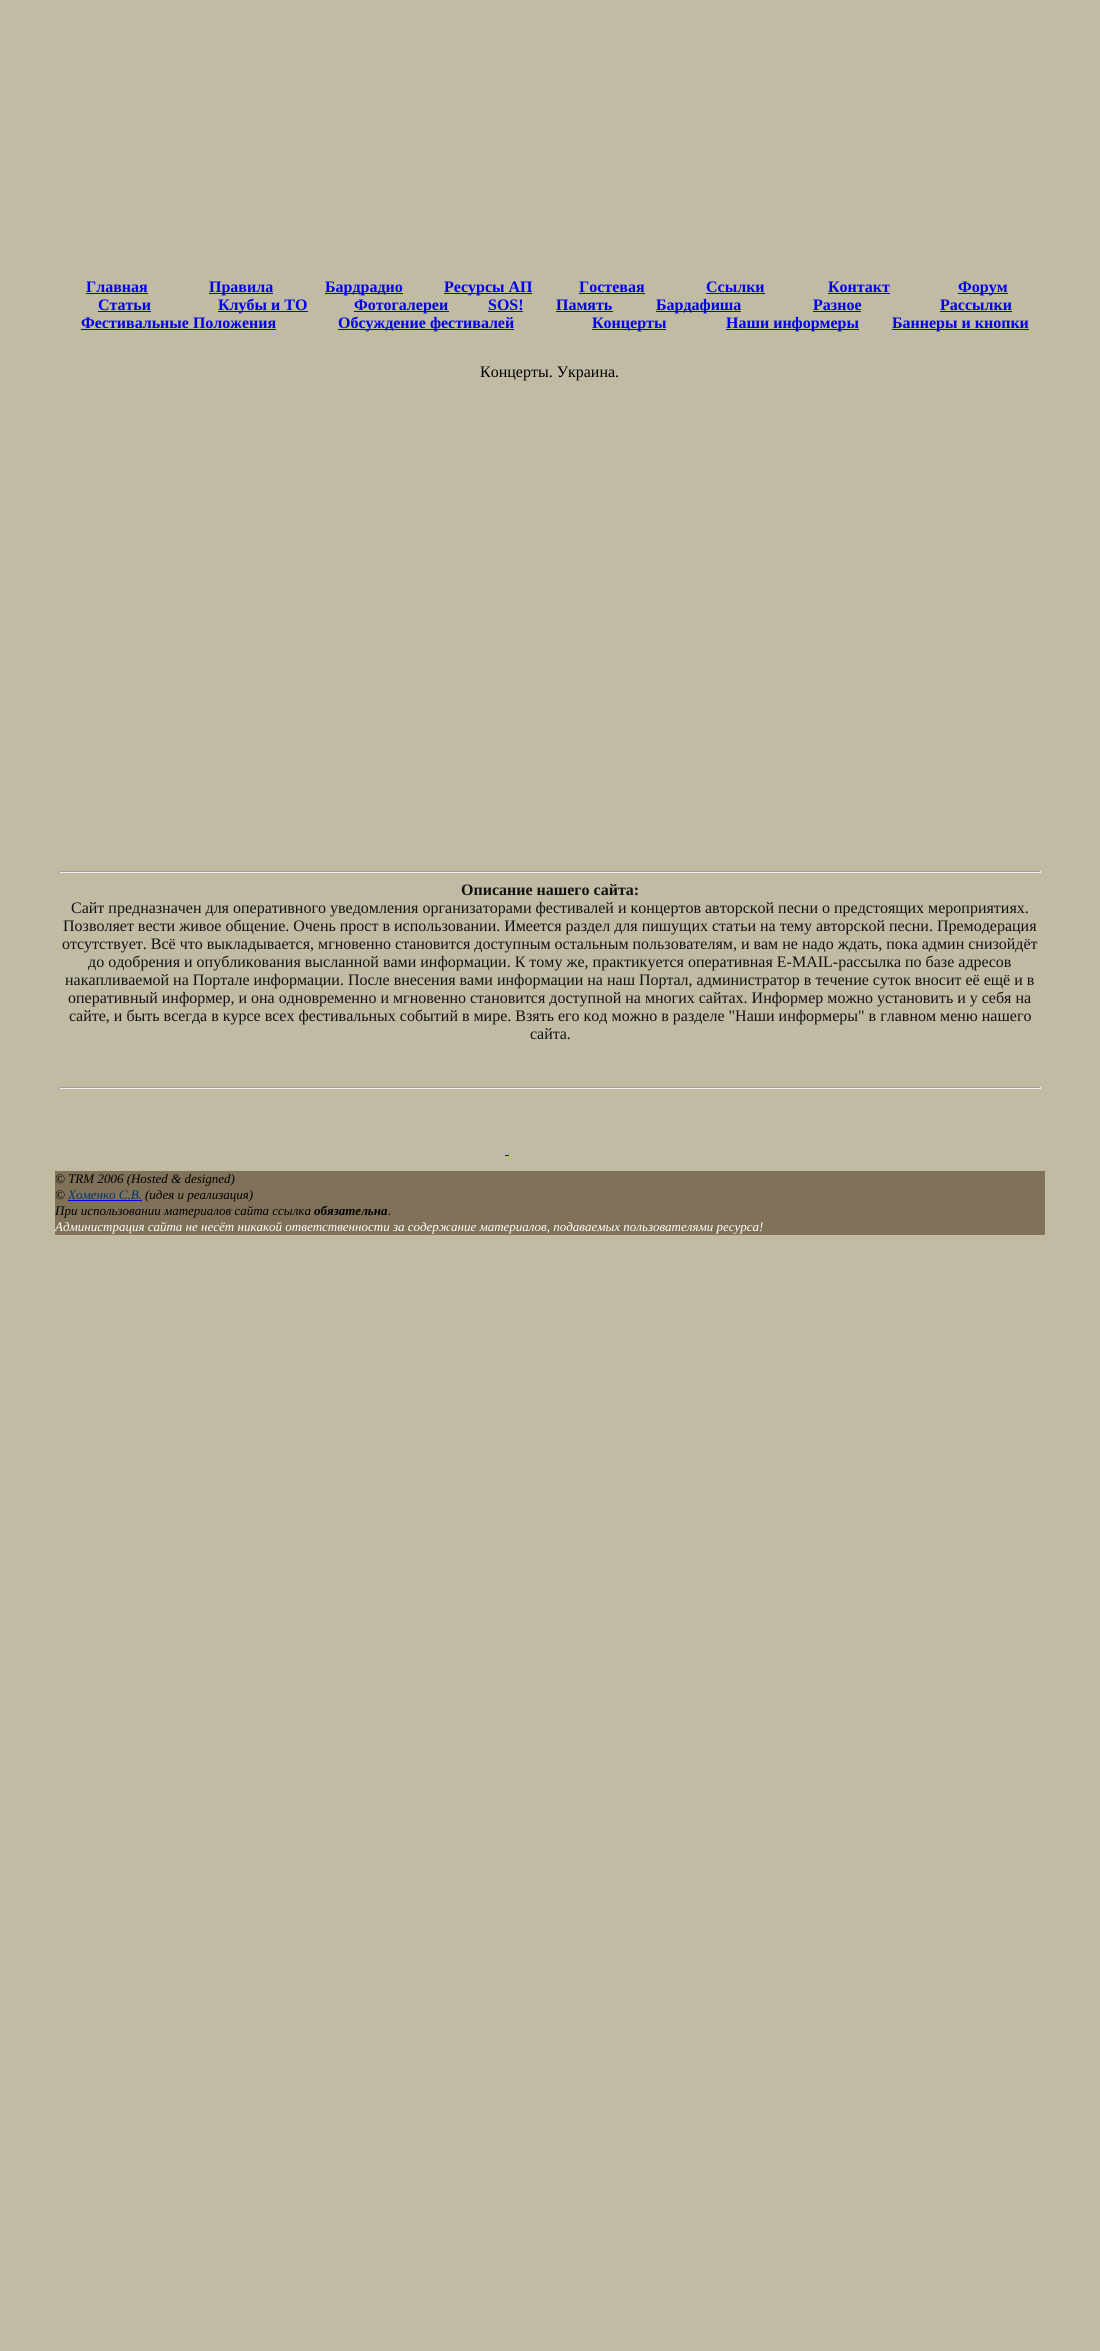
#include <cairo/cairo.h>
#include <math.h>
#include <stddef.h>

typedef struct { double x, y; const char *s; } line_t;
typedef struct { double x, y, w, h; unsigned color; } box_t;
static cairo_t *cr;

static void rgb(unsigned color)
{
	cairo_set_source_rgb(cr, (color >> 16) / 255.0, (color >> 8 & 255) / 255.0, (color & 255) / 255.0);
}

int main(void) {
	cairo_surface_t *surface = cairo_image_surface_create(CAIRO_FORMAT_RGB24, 1100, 2351);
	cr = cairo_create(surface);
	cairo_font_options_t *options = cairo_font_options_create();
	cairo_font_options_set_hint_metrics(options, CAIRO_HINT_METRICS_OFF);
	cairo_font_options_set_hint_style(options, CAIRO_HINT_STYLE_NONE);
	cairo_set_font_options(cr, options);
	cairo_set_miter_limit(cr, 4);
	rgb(0xc1bba4);
	cairo_paint(cr);
	{
		static const box_t items[] = {
			{86, 293, 62, 1, 0x0000ee},
			{209, 293, 64, 1, 0x0000ee},
			{325, 293, 78, 1, 0x0000ee},
			{444, 293, 88, 1, 0x0000ee},
			{579, 293, 66, 1, 0x0000ee},
			{706, 293, 59, 1, 0x0000ee},
			{828, 293, 62, 1, 0x0000ee},
			{958, 293, 50, 1, 0x0000ee},
			{98, 311, 53, 1, 0x0000ee},
			{218, 311, 90, 1, 0x0000ee},
			{354, 311, 95, 1, 0x0000ee},
			{488, 311, 35, 1, 0x0000ee},
			{556, 311, 57, 1, 0x0000ee},
			{656, 311, 85, 1, 0x0000ee},
			{813, 311, 48, 1, 0x0000ee},
			{940, 311, 72, 1, 0x0000ee},
			{81, 329, 195, 1, 0x0000ee},
			{338, 329, 176, 1, 0x0000ee},
			{592, 329, 74, 1, 0x0000ee},
			{726, 329, 133, 1, 0x0000ee},
			{892, 329, 137, 1, 0x0000ee},
			{59, 871, 982, 1, 0x9f9f9f},
			{1040, 871, 1, 2, 0xeeeeee},
			{59, 872, 982, 1, 0xeeeeee},
			{59, 871, 1, 2, 0x9f9f9f},
			{59, 1087, 982, 1, 0x9f9f9f},
			{1040, 1087, 1, 2, 0xeeeeee},
			{59, 1088, 982, 1, 0xeeeeee},
			{59, 1087, 1, 2, 0x9f9f9f},
			{505, 1155, 4, 1, 0x0000ee},
			{55, 1171, 990, 64, 0x807259},
			{68, 1200, 74, 1, 0x0000ee},
		};
		for (size_t i = 0; i < sizeof items / sizeof *items; i++) {
			rgb(items[i].color);
			cairo_rectangle(cr, items[i].x, items[i].y, items[i].w, items[i].h);
			cairo_fill(cr);
		}
	}
	cairo_select_font_face(cr, "Liberation Serif", CAIRO_FONT_SLANT_NORMAL, CAIRO_FONT_WEIGHT_BOLD);
	cairo_set_font_size(cr, 16);
	{
		static const line_t items[] = {
			{86, 292, "Главная"},
			{209, 292, "Правила"},
			{325, 292, "Бардрадио"},
			{444, 292, "Ресурсы АП"},
			{579, 292, "Гостевая"},
			{706, 292, "Ссылки"},
			{828, 292, "Контакт"},
			{958, 292, "Форум"},
			{98, 310, "Статьи"},
			{218, 310, "Клубы и ТО"},
			{354, 310, "Фотогалереи"},
			{488, 310, "SOS!"},
			{556, 310, "Память"},
			{656, 310, "Бардафиша"},
			{813, 310, "Разное"},
			{940, 310, "Рассылки"},
			{81, 328, "Фестивальные Положения"},
			{338, 328, "Обсуждение фестивалей"},
			{592, 328, "Концерты"},
			{726, 328, "Наши информеры"},
			{892, 328, "Баннеры и кнопки"},
		};
		for (size_t i = 0; i < sizeof items / sizeof *items; i++) {
			cairo_move_to(cr, items[i].x, items[i].y);
			cairo_show_text(cr, items[i].s);
		}
	}
	cairo_select_font_face(cr, "Liberation Serif", CAIRO_FONT_SLANT_NORMAL, CAIRO_FONT_WEIGHT_NORMAL);
	rgb(0x000000);
	cairo_move_to(cr, 480, 377);
	cairo_show_text(cr, "Концерты. Украина.");
	cairo_select_font_face(cr, "Liberation Serif", CAIRO_FONT_SLANT_NORMAL, CAIRO_FONT_WEIGHT_BOLD);
	rgb(0x111111);
	cairo_move_to(cr, 461, 895);
	cairo_show_text(cr, "Описание нашего сайта:");
	cairo_select_font_face(cr, "Liberation Serif", CAIRO_FONT_SLANT_NORMAL, CAIRO_FONT_WEIGHT_NORMAL);
	{
		static const line_t items[] = {
			{71, 913, "Сайт предназначен для оперативного уведомления организаторами фестивалей и концертов авторской песни о предстоящих мероприятиях."},
			{63, 931, "Позволяет вести живое общение. Очень прост в использовании. Имеется раздел для пишущих статьи на тему авторской песни. Премодерация"},
			{62, 949, "отсутствует. Всё что выкладывается, мгновенно становится доступным остальным пользователям, и вам не надо ждать, пока админ снизойдёт"},
			{88, 967, "до одобрения и опубликования высланной вами информации. К тому же, практикуется оперативная E-MAIL-рассылка по базе адресов"},
			{65, 985, "накапливаемой на Портале информации. После внесения вами информации на наш Портал, администратор в течение суток вносит её ещё и в"},
			{68, 1003, "оперативный информер, и она одновременно и мгновенно становится доступной на многих сайтах. Информер можно установить и у себя на"},
			{69, 1021, "сайте, и быть всегда в курсе всех фестивальных событий в мире. Взять его код можно в разделе \"Наши информеры\" в главном меню нашего"},
			{530, 1039, "сайта."},
		};
		for (size_t i = 0; i < sizeof items / sizeof *items; i++) {
			cairo_move_to(cr, items[i].x, items[i].y);
			cairo_show_text(cr, items[i].s);
		}
	}
	cairo_select_font_face(cr, "Liberation Serif", CAIRO_FONT_SLANT_ITALIC, CAIRO_FONT_WEIGHT_NORMAL);
	cairo_set_font_size(cr, 13);
	rgb(0x000000);
	cairo_move_to(cr, 55, 1183);
	cairo_show_text(cr, "© TRM 2006 (Hosted & designed)");
	cairo_move_to(cr, 55, 1199);
	cairo_show_text(cr, "©");
	rgb(0x003366);
	cairo_move_to(cr, 68, 1199);
	cairo_show_text(cr, "Хоменко С.В.");
	rgb(0x000000);
	cairo_move_to(cr, 145, 1199);
	cairo_show_text(cr, "(идея и реализация)");
	cairo_move_to(cr, 55, 1215);
	cairo_show_text(cr, "При использовании материалов сайта ссылка");
	cairo_select_font_face(cr, "Liberation Serif", CAIRO_FONT_SLANT_ITALIC, CAIRO_FONT_WEIGHT_BOLD);
	cairo_move_to(cr, 314, 1215);
	cairo_show_text(cr, "обязательна");
	cairo_select_font_face(cr, "Liberation Serif", CAIRO_FONT_SLANT_ITALIC, CAIRO_FONT_WEIGHT_NORMAL);
	cairo_move_to(cr, 388, 1215);
	cairo_show_text(cr, ".");
	rgb(0xffffff);
	cairo_move_to(cr, 55, 1231);
	cairo_show_text(cr, "Администрация сайта не несёт никакой ответственности за содержание материалов, подаваемых пользователями ресурса!");
	cairo_surface_write_to_png(surface, "page.png");
	cairo_font_options_destroy(options);
	cairo_destroy(cr);
	cairo_surface_destroy(surface);
	return 0;
}
